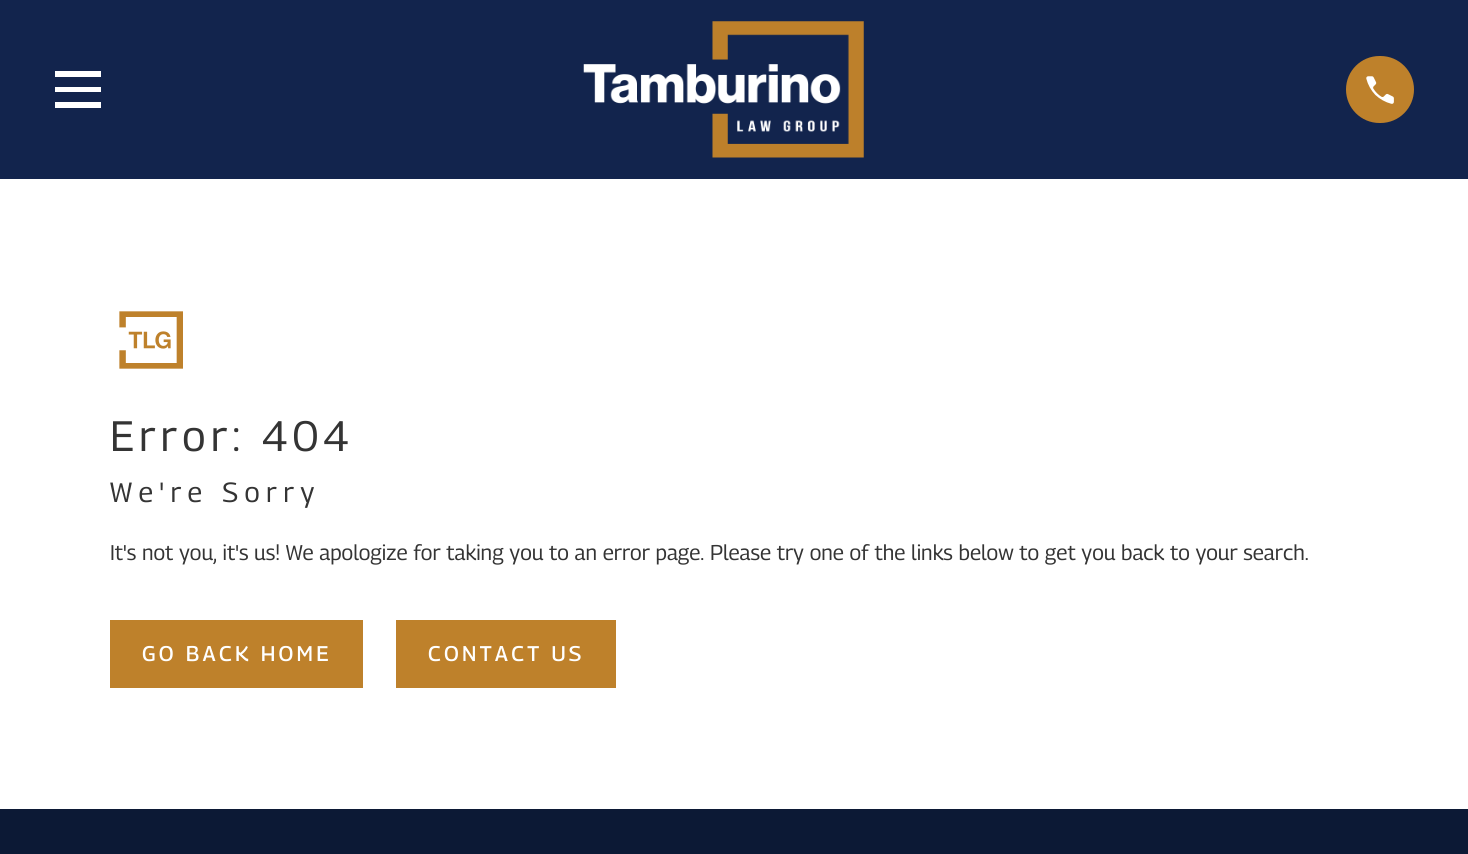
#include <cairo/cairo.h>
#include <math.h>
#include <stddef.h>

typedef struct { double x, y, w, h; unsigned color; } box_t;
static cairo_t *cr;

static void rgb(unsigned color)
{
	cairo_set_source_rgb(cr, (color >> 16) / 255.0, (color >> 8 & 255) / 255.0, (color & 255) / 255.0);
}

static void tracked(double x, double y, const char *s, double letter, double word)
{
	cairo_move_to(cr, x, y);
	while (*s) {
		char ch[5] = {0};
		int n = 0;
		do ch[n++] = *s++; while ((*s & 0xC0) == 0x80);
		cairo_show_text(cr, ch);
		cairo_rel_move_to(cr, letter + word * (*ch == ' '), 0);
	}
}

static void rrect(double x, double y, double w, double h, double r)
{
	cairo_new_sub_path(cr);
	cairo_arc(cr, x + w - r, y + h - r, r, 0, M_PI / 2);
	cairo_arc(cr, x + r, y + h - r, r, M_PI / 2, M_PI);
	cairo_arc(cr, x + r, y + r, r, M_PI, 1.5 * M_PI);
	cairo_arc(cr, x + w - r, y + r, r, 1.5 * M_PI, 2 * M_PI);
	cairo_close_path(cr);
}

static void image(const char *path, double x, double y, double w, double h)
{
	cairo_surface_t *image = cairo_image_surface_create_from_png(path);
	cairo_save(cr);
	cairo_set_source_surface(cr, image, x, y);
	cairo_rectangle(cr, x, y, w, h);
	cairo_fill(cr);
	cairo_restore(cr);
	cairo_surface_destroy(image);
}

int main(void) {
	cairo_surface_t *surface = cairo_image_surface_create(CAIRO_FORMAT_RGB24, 1468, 854);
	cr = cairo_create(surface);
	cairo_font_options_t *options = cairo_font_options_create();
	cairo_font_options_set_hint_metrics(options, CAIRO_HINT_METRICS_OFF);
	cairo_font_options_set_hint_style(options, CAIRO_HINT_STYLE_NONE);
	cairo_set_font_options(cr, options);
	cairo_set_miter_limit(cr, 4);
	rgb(0xffffff);
	cairo_paint(cr);
	rgb(0x12244d);
	cairo_rectangle(cr, 0, 0, 1468, 179);
	cairo_fill(cr);
	cairo_save(cr);
	cairo_rectangle(cr, 55, 66, 46, 47);
	cairo_clip(cr);
	rgb(0xffffff);
	cairo_new_path(cr);
	cairo_move_to(cr, 55, 71);
	cairo_line_to(cr, 55, 77);
	cairo_line_to(cr, 102, 77);
	cairo_line_to(cr, 102, 71);
	cairo_close_path(cr);
	cairo_move_to(cr, 55, 87);
	cairo_line_to(cr, 55, 92);
	cairo_line_to(cr, 102, 92);
	cairo_line_to(cr, 102, 87);
	cairo_close_path(cr);
	cairo_move_to(cr, 55, 102);
	cairo_line_to(cr, 55, 108);
	cairo_line_to(cr, 102, 108);
	cairo_line_to(cr, 102, 102);
	cairo_close_path(cr);
	cairo_fill(cr);
	cairo_restore(cr);
	image("img/1.png", 583, 21, 281, 137);
	rgb(0xbe812b);
	rrect(1346, 56, 68, 67, 33.5);
	cairo_fill(cr);
	image("img/2.png", 1366, 76, 28, 28);
	image("img/3.png", 119, 311, 64, 58);
	{
		static const box_t items[] = {
			{110, 620, 253, 68, 0xbe812b},
			{396, 620, 220, 68, 0xbe812b},
			{0, 809, 1468, 45, 0x0c1935},
		};
		for (size_t i = 0; i < sizeof items / sizeof *items; i++) {
			rgb(items[i].color);
			cairo_rectangle(cr, items[i].x, items[i].y, items[i].w, items[i].h);
			cairo_fill(cr);
		}
	}
	cairo_select_font_face(cr, "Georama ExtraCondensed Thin", CAIRO_FONT_SLANT_NORMAL, CAIRO_FONT_WEIGHT_NORMAL);
	cairo_set_font_size(cr, 42.5);
	rgb(0x343434);
	tracked(110, 451, "Error: 404", 5.25, 0);
	cairo_set_font_size(cr, 27.75);
	tracked(110, 502, "We're Sorry", 6.4, 0);
	cairo_set_font_size(cr, 21.25);
	cairo_move_to(cr, 110, 560);
	cairo_show_text(cr, "It's not you, it's us! We apologize for taking you to an error page. Please try one of the links below to get you back to your search.");
	cairo_select_font_face(cr, "Georama ExtraCondensed Thin Medium", CAIRO_FONT_SLANT_NORMAL, CAIRO_FONT_WEIGHT_NORMAL);
	rgb(0xffffff);
	tracked(142, 661, "GO BACK HOME", 3.25, 0);
	tracked(428, 661, "CONTACT US", 3.25, 0);
	cairo_surface_write_to_png(surface, "page.png");
	cairo_font_options_destroy(options);
	cairo_destroy(cr);
	cairo_surface_destroy(surface);
	return 0;
}
